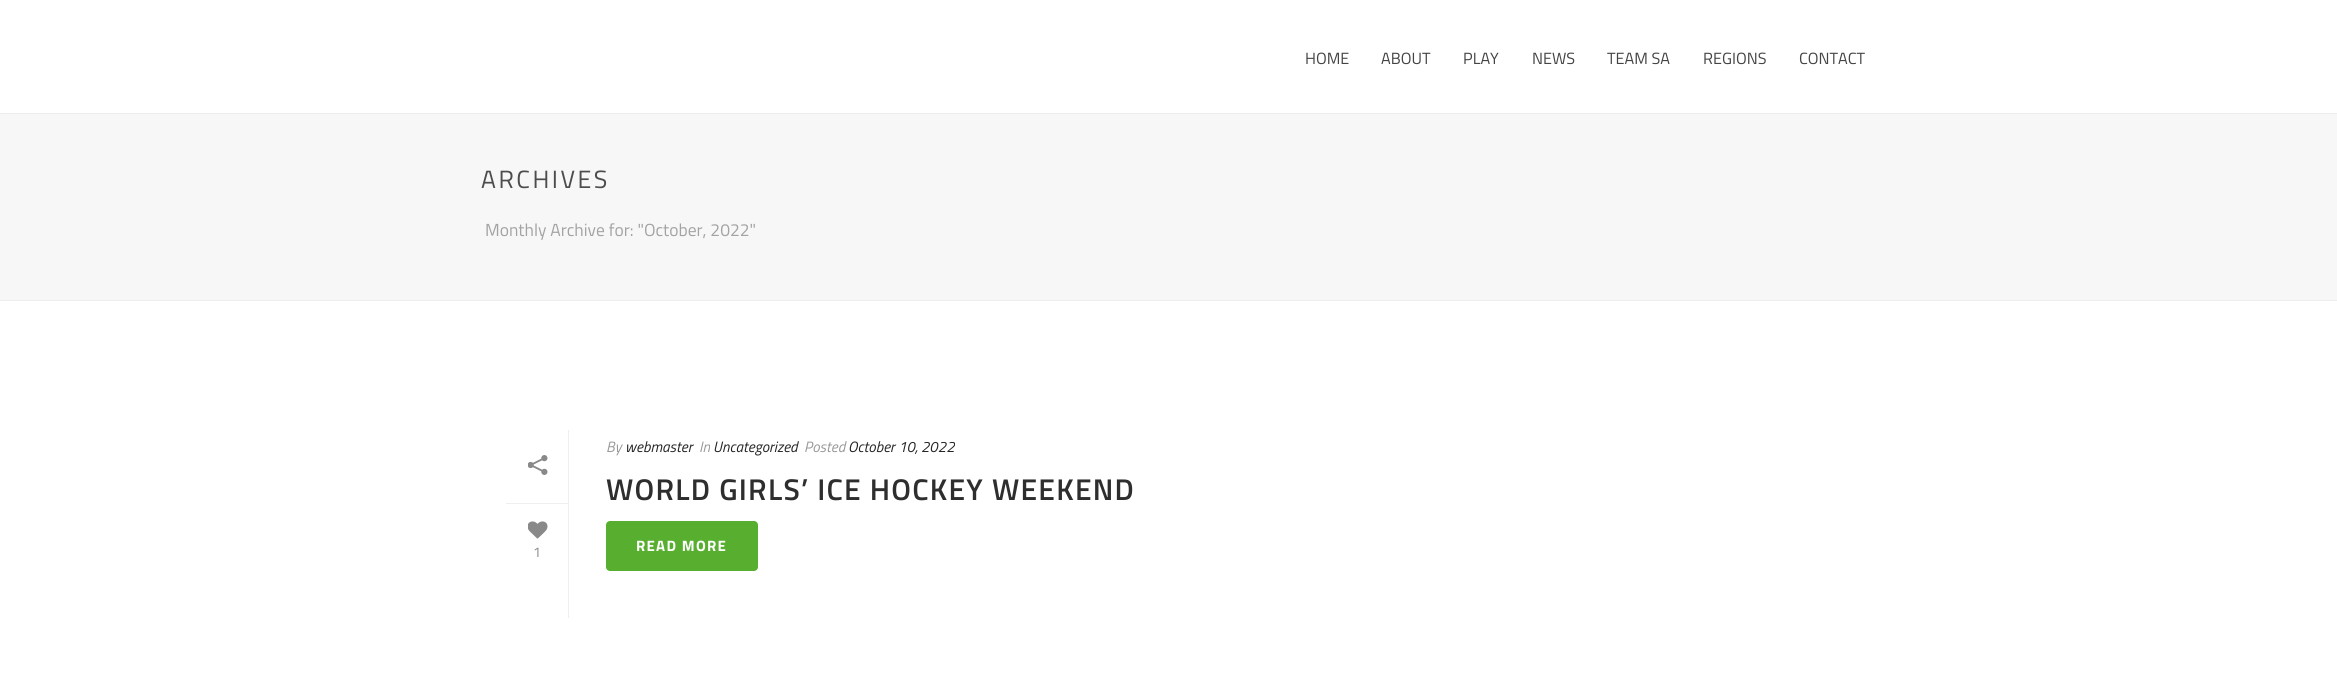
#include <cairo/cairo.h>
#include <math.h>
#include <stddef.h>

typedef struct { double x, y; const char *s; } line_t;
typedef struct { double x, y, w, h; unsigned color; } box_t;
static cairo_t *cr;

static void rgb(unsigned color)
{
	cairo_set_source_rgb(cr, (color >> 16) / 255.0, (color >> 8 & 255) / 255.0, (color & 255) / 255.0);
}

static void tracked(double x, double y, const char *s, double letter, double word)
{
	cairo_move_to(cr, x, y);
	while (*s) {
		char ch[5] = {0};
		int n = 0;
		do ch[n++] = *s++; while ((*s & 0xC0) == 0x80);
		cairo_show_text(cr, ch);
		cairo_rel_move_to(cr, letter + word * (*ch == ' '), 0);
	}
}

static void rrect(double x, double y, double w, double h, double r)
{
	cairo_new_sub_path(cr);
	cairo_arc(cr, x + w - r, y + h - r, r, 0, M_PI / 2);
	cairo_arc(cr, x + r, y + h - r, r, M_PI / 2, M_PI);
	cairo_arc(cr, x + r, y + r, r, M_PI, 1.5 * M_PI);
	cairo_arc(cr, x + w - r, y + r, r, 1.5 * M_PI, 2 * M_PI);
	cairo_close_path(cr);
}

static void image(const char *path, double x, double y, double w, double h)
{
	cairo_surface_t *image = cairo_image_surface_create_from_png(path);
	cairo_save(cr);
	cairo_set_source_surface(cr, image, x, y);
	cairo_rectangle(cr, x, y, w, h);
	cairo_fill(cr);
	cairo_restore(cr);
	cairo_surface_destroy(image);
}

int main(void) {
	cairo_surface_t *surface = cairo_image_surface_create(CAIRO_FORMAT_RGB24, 2337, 682);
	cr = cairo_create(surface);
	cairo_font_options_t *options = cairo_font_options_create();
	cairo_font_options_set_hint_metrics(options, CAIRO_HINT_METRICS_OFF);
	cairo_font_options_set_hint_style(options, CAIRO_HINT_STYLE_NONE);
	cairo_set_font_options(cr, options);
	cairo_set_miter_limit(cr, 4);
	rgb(0xffffff);
	cairo_paint(cr);
	{
		static const box_t items[] = {
			{0, 114, 2337, 186, 0xf7f7f7},
			{0, 300, 2337, 1, 0xededed},
			{0, 113, 2337, 1, 0xededed},
			{568, 430, 1, 188, 0xefefef},
			{506, 503, 62, 1, 0xefefef},
		};
		for (size_t i = 0; i < sizeof items / sizeof *items; i++) {
			rgb(items[i].color);
			cairo_rectangle(cr, items[i].x, items[i].y, items[i].w, items[i].h);
			cairo_fill(cr);
		}
	}
	image("img/1.png", 528, 455, 20, 20);
	image("img/2.png", 528, 521, 20, 18);
	rgb(0x58af2f);
	rrect(606, 521, 152, 50, 4);
	cairo_fill(cr);
	cairo_select_font_face(cr, "Titillium Web", CAIRO_FONT_SLANT_NORMAL, CAIRO_FONT_WEIGHT_NORMAL);
	cairo_set_font_size(cr, 16.25);
	rgb(0x444444);
	{
		static const line_t items[] = {
			{1305, 64, "HOME"},
			{1381, 64, "ABOUT"},
			{1463, 64, "PLAY"},
			{1532, 64, "NEWS"},
			{1607, 64, "TEAM SA"},
			{1703, 64, "REGIONS"},
			{1799, 64, "CONTACT"},
		};
		for (size_t i = 0; i < sizeof items / sizeof *items; i++) {
			cairo_move_to(cr, items[i].x, items[i].y);
			cairo_show_text(cr, items[i].s);
		}
	}
	cairo_set_font_size(cr, 25);
	rgb(0x4d4d4d);
	tracked(481, 188, "ARCHIVES", 2.5, 0);
	cairo_set_font_size(cr, 17.5);
	rgb(0xa3a3a3);
	cairo_move_to(cr, 485, 236);
	cairo_show_text(cr, "Monthly Archive for: \"October, 2022\"");
	cairo_set_font_size(cr, 14);
	rgb(0x898989);
	cairo_move_to(cr, 533, 557);
	cairo_show_text(cr, "1");
	cairo_select_font_face(cr, "Titillium Web", CAIRO_FONT_SLANT_ITALIC, CAIRO_FONT_WEIGHT_NORMAL);
	cairo_set_font_size(cr, 15);
	rgb(0x999999);
	cairo_move_to(cr, 606, 452);
	cairo_show_text(cr, "By");
	rgb(0x252525);
	cairo_move_to(cr, 625, 452);
	cairo_show_text(cr, "webmaster");
	rgb(0x999999);
	cairo_move_to(cr, 699, 452);
	cairo_show_text(cr, "In");
	rgb(0x252525);
	cairo_move_to(cr, 713, 452);
	cairo_show_text(cr, "Uncategorized");
	rgb(0x999999);
	cairo_move_to(cr, 804, 452);
	cairo_show_text(cr, "Posted");
	rgb(0x252525);
	cairo_move_to(cr, 848, 452);
	cairo_show_text(cr, "October 10, 2022");
	cairo_select_font_face(cr, "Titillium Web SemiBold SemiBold", CAIRO_FONT_SLANT_NORMAL, CAIRO_FONT_WEIGHT_NORMAL);
	cairo_set_font_size(cr, 30);
	rgb(0x2e2e2e);
	tracked(606, 500, "WORLD GIRLS’ ICE HOCKEY WEEKEND", 1.25, 0);
	cairo_select_font_face(cr, "Titillium Web", CAIRO_FONT_SLANT_NORMAL, CAIRO_FONT_WEIGHT_BOLD);
	cairo_set_font_size(cr, 15);
	rgb(0xffffff);
	tracked(636, 551, "READ MORE", 1.25, 0);
	cairo_surface_write_to_png(surface, "page.png");
	cairo_font_options_destroy(options);
	cairo_destroy(cr);
	cairo_surface_destroy(surface);
	return 0;
}
